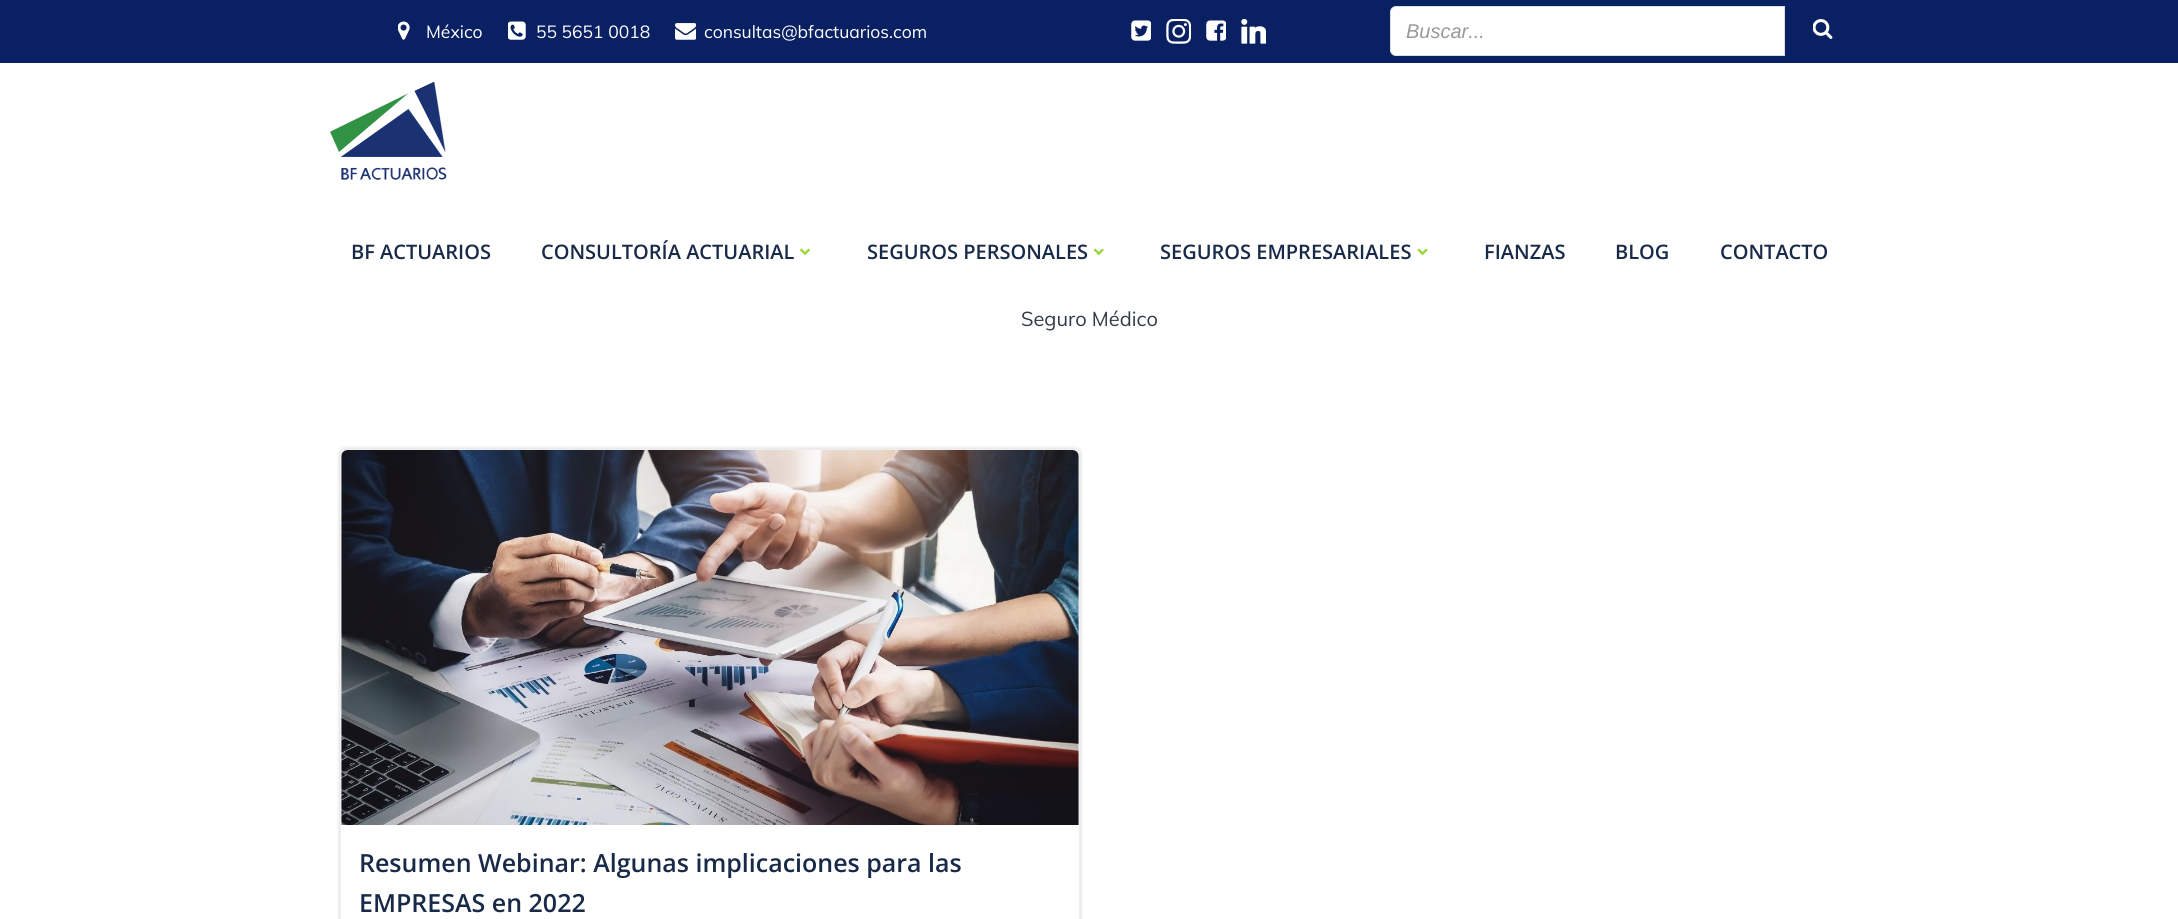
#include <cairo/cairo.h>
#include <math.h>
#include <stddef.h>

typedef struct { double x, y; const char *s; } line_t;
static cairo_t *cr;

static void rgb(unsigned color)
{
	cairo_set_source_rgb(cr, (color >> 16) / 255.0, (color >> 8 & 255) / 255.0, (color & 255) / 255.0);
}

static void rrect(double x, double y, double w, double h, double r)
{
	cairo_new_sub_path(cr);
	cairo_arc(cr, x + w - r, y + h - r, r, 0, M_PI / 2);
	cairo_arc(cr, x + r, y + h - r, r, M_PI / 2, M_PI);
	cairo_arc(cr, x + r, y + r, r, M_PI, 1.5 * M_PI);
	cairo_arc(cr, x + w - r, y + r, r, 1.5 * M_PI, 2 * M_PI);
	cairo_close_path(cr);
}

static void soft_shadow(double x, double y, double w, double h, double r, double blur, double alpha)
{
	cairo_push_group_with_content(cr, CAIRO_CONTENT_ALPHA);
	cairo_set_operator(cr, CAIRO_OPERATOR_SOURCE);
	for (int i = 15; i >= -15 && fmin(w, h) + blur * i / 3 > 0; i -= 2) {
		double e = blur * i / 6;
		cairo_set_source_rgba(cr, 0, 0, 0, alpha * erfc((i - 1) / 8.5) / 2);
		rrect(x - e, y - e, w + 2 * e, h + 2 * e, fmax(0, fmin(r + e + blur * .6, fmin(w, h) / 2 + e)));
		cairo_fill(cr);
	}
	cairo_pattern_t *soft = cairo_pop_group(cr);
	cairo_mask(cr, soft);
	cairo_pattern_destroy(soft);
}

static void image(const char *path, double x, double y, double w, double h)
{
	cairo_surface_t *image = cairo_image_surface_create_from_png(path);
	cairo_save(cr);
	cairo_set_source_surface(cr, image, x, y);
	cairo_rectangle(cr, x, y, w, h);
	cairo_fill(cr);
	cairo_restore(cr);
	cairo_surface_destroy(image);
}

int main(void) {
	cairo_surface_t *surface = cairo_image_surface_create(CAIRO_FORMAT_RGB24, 2178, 919);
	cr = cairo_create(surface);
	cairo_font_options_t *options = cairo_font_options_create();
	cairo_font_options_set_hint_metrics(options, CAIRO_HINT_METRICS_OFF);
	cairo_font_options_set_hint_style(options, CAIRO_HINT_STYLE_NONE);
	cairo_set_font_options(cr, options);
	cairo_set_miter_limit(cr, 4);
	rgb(0xffffff);
	cairo_paint(cr);
	rgb(0x092062);
	cairo_rectangle(cr, 0, 0, 2178, 63);
	cairo_fill(cr);
	image("img/1.png", 398, 21, 12, 19);
	image("img/2.png", 508, 21, 18, 19);
	image("img/3.png", 675, 23, 21, 17);
	image("img/4.png", 1131, 20, 20, 21);
	image("img/5.png", 1166, 19, 25, 25);
	image("img/6.png", 1206, 20, 20, 21);
	image("img/7.png", 1241, 19, 25, 25);
	rgb(0xffffff);
	cairo_new_path(cr);
	cairo_move_to(cr, 1396, 6.5);
	cairo_line_to(cr, 1784.5, 6.5);
	cairo_line_to(cr, 1784.5, 55.5);
	cairo_line_to(cr, 1396, 55.5);
	cairo_curve_to(cr, 1393, 55.5, 1390.5, 53, 1390.5, 50);
	cairo_line_to(cr, 1390.5, 12);
	cairo_curve_to(cr, 1390.5, 9, 1393, 6.5, 1396, 6.5);
	cairo_close_path(cr);
	cairo_fill_preserve(cr);
	rgb(0xdedede);
	cairo_set_line_width(cr, 1);
	cairo_stroke(cr);
	image("img/8.png", 1813, 19, 20, 20);
	image("img/9.png", 330, 81, 117, 99);
	image("img/10.png", 800, 248, 10, 7);
	image("img/11.png", 1093, 248, 11, 8);
	image("img/12.png", 1417, 248, 11, 8);
	cairo_save(cr);
	cairo_set_fill_rule(cr, CAIRO_FILL_RULE_EVEN_ODD);
	cairo_new_path(cr);
	cairo_move_to(cr, 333, 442);
	cairo_line_to(cr, 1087, 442);
	cairo_line_to(cr, 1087, 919);
	cairo_line_to(cr, 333, 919);
	cairo_close_path(cr);
	cairo_move_to(cr, 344, 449);
	cairo_line_to(cr, 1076, 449);
	cairo_curve_to(cr, 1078, 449, 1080, 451, 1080, 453);
	cairo_line_to(cr, 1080, 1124);
	cairo_curve_to(cr, 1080, 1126, 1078, 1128, 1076, 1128);
	cairo_line_to(cr, 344, 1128);
	cairo_curve_to(cr, 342, 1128, 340, 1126, 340, 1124);
	cairo_line_to(cr, 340, 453);
	cairo_curve_to(cr, 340, 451, 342, 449, 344, 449);
	cairo_close_path(cr);
	cairo_clip(cr);
	rgb(0x000000);
	soft_shadow(340, 449, 740, 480, 4, 2, 0.2);
	cairo_restore(cr);
	rrect(340.5, 449.5, 739, 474, 3.5);
	rgb(0xeeeeee);
	cairo_stroke(cr);
	image("img/13.png", 341, 450, 738, 375);
	cairo_select_font_face(cr, "Muli", CAIRO_FONT_SLANT_NORMAL, CAIRO_FONT_WEIGHT_NORMAL);
	cairo_set_font_size(cr, 17.5);
	rgb(0xffffff);
	{
		static const line_t items[] = {
			{426, 38, "México"},
			{536, 38, "55 5651 0018"},
			{704, 38, "consultas@bfactuarios.com"},
		};
		for (size_t i = 0; i < sizeof items / sizeof *items; i++) {
			cairo_move_to(cr, items[i].x, items[i].y);
			cairo_show_text(cr, items[i].s);
		}
	}
	cairo_select_font_face(cr, "Liberation Sans", CAIRO_FONT_SLANT_ITALIC, CAIRO_FONT_WEIGHT_NORMAL);
	cairo_set_font_size(cr, 20);
	rgb(0x999999);
	cairo_move_to(cr, 1406, 38);
	cairo_show_text(cr, "Buscar...");
	cairo_select_font_face(cr, "Open Sans SemiBold", CAIRO_FONT_SLANT_NORMAL, CAIRO_FONT_WEIGHT_NORMAL);
	rgb(0x192a49);
	{
		static const line_t items[] = {
			{351, 259, "BF ACTUARIOS"},
			{541, 259, "CONSULTORÍA ACTUARIAL"},
			{867, 259, "SEGUROS PERSONALES"},
			{1160, 259, "SEGUROS EMPRESARIALES"},
			{1484, 259, "FIANZAS"},
			{1615, 259, "BLOG"},
			{1720, 259, "CONTACTO"},
		};
		for (size_t i = 0; i < sizeof items / sizeof *items; i++) {
			cairo_move_to(cr, items[i].x, items[i].y);
			cairo_show_text(cr, items[i].s);
		}
	}
	cairo_select_font_face(cr, "Muli", CAIRO_FONT_SLANT_NORMAL, CAIRO_FONT_WEIGHT_NORMAL);
	rgb(0x313a49);
	cairo_move_to(cr, 1021, 326);
	cairo_show_text(cr, "Seguro Médico");
	cairo_select_font_face(cr, "Open Sans SemiBold", CAIRO_FONT_SLANT_NORMAL, CAIRO_FONT_WEIGHT_NORMAL);
	cairo_set_font_size(cr, 25);
	rgb(0x192a49);
	cairo_move_to(cr, 359, 872);
	cairo_show_text(cr, "Resumen Webinar: Algunas implicaciones para las");
	cairo_move_to(cr, 359, 912);
	cairo_show_text(cr, "EMPRESAS en 2022");
	cairo_surface_write_to_png(surface, "page.png");
	cairo_font_options_destroy(options);
	cairo_destroy(cr);
	cairo_surface_destroy(surface);
	return 0;
}
